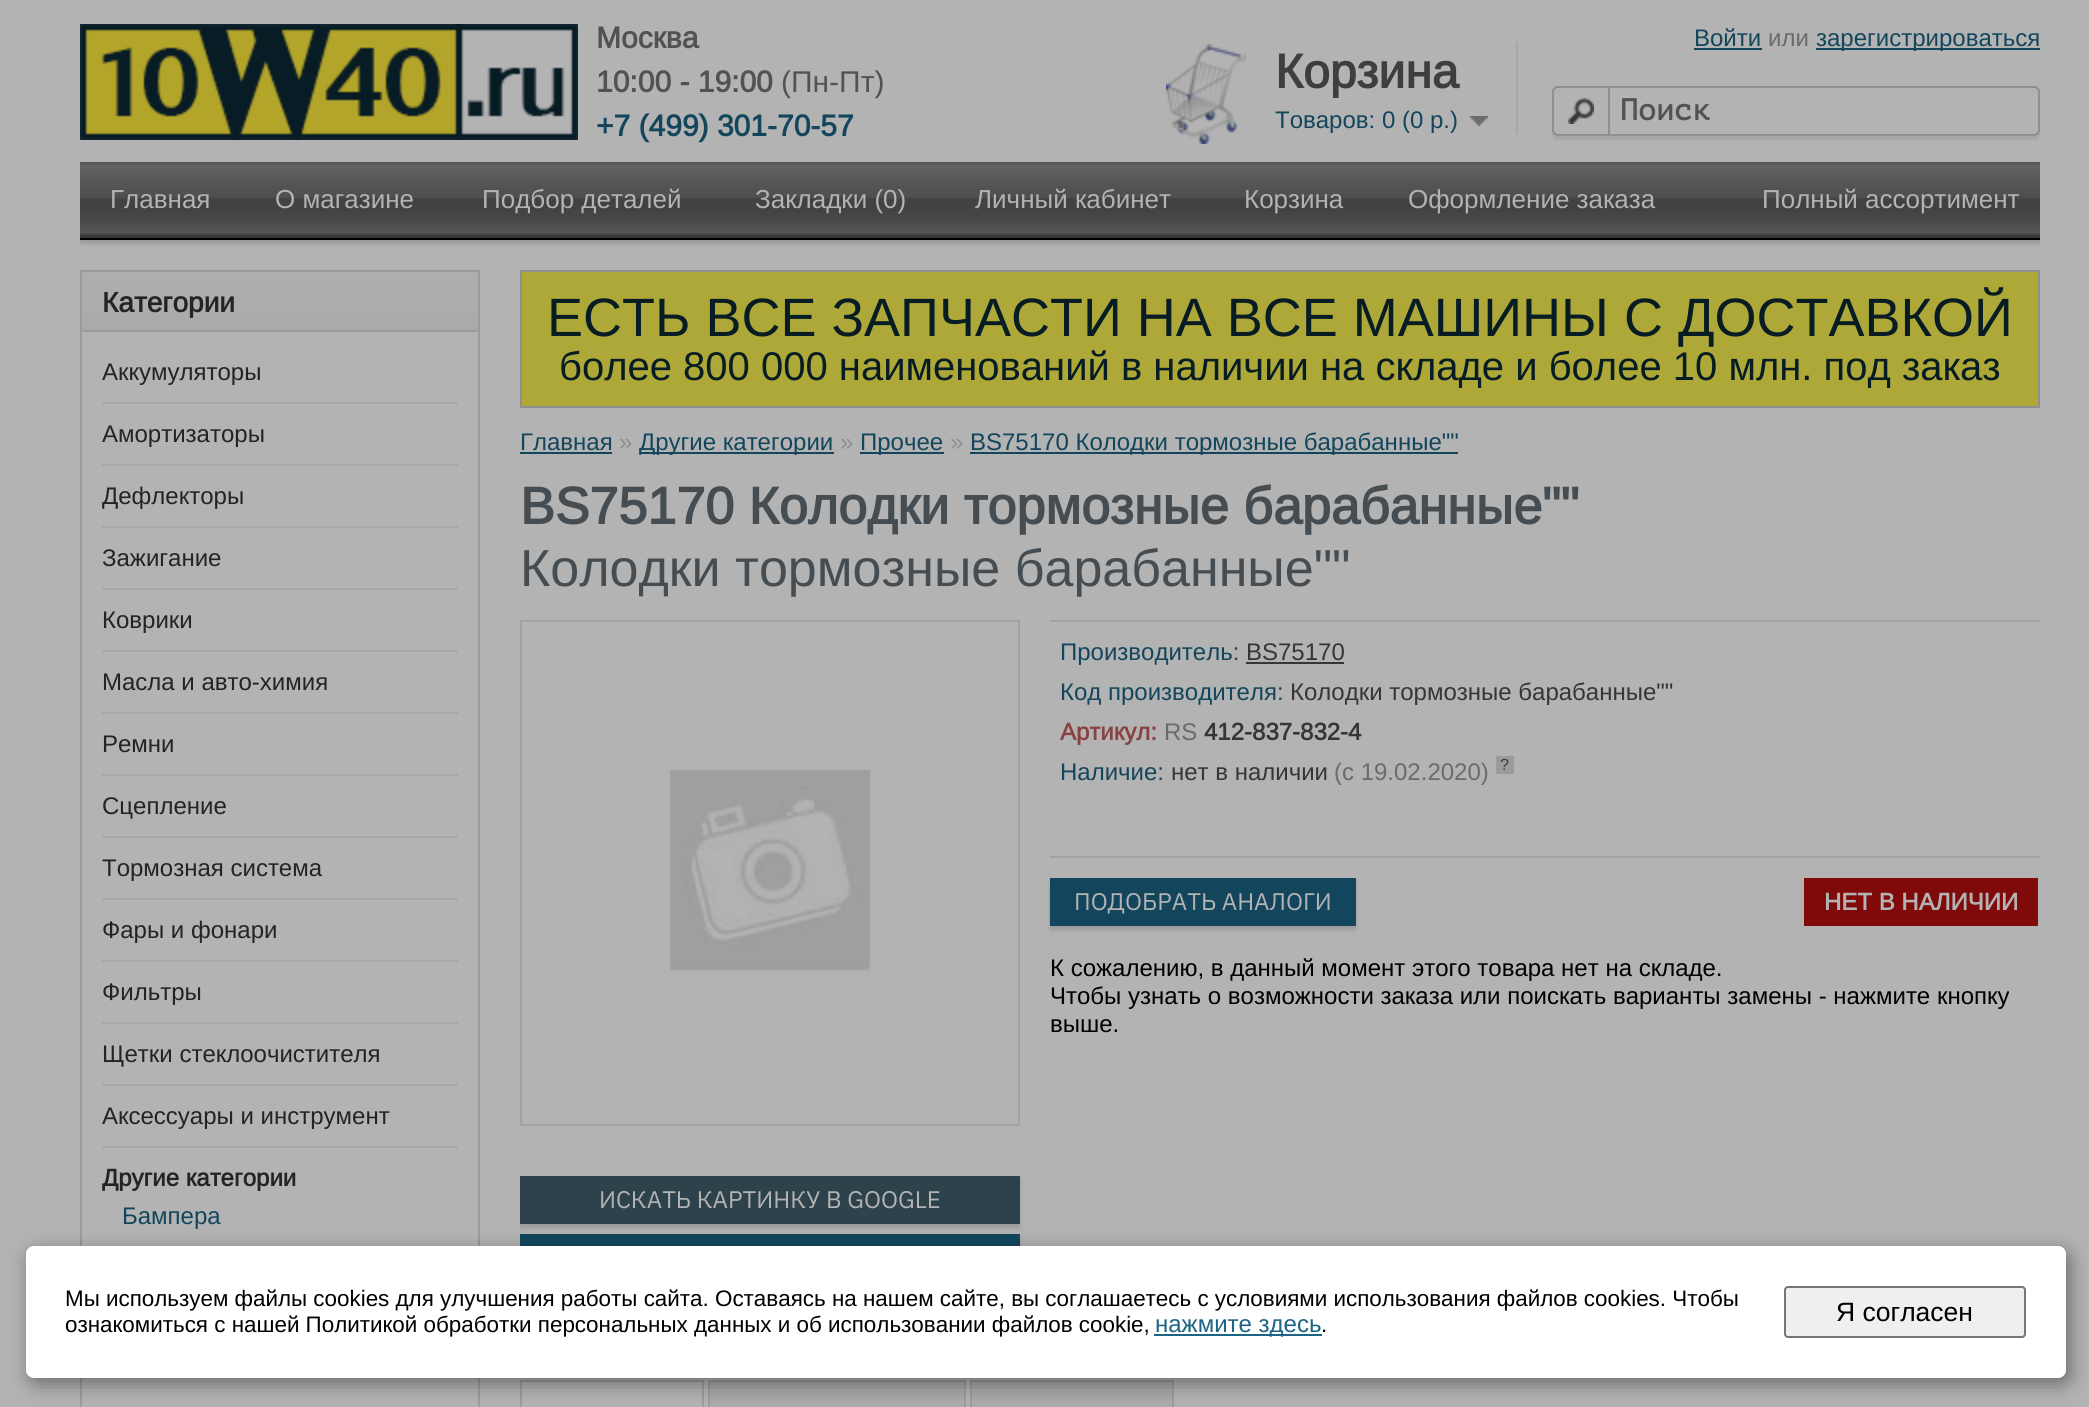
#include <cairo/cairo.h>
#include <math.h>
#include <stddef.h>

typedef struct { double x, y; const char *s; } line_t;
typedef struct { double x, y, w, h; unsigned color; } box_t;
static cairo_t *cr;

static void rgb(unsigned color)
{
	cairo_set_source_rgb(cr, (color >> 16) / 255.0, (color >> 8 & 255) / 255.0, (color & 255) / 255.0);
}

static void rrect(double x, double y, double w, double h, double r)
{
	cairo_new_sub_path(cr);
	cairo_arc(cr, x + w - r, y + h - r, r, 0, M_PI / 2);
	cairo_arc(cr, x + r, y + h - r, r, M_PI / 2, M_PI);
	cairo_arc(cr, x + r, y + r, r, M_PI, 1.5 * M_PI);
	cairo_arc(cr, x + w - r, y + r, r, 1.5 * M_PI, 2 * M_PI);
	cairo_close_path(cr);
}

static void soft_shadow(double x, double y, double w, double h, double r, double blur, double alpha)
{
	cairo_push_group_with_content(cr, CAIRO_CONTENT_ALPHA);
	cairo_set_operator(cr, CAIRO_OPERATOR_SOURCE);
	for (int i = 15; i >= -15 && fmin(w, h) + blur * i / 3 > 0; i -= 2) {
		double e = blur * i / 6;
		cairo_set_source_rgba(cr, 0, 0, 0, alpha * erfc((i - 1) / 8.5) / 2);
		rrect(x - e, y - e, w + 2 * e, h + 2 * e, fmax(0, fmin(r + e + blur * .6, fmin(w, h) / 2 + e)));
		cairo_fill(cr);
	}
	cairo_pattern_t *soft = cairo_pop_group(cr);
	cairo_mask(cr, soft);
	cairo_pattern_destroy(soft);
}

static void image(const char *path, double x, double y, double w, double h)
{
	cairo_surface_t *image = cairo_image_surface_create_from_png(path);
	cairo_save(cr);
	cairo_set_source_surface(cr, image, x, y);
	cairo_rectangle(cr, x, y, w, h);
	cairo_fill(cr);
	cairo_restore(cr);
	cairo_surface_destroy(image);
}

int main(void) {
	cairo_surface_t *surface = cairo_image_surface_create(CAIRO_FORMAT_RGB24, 2089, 1407);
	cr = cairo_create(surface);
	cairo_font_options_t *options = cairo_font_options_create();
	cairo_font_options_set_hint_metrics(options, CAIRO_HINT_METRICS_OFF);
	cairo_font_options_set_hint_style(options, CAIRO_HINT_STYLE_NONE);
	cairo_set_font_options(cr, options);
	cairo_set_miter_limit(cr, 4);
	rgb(0xb3b3b3);
	cairo_paint(cr);
	image("img/1.png", 80, 24, 498, 116);
	rgb(0x13465c);
	cairo_rectangle(cr, 1694, 48, 68, 2);
	cairo_fill(cr);
	cairo_rectangle(cr, 1816, 48, 224, 2);
	cairo_fill(cr);
	image("img/2.png", 1166, 44, 80, 100);
	rgb(0xa7a7a7);
	cairo_rectangle(cr, 1516, 42, 2, 92);
	cairo_fill(cr);
	image("img/3.png", 1470, 116, 18, 10);
	rgb(0xa8a8a8);
	cairo_new_path(cr);
	cairo_move_to(cr, 1552, 130);
	cairo_curve_to(cr, 1552, 134, 1552, 140, 1558, 140);
	cairo_line_to(cr, 2035, 140);
	cairo_curve_to(cr, 2040, 139, 2040, 134, 2040, 130);
	cairo_curve_to(cr, 2040, 133, 2037, 136, 2034, 136);
	cairo_line_to(cr, 1558, 136);
	cairo_curve_to(cr, 1555, 136, 1552, 133, 1552, 130);
	cairo_close_path(cr);
	cairo_fill(cr);
	rgb(0xb3b3b3);
	rrect(1553, 87, 486, 48, 5);
	cairo_fill_preserve(cr);
	rgb(0x8f8f8f);
	cairo_stroke(cr);
	image("img/4.png", 1568, 98, 26, 26);
	cairo_rectangle(cr, 1608, 86, 2, 48);
	cairo_fill(cr);
	cairo_save(cr);
	cairo_rectangle(cr, 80, 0, 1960, 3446);
	cairo_clip(cr);
	rgb(0x9b9b9b);
	soft_shadow(80, 166, 1980, 78, 0, 2, 1);
	cairo_restore(cr);
	image("img/5.png", 80, 162, 1960, 76);
	rgb(0x000000);
	cairo_rectangle(cr, 80, 238, 1960, 2);
	cairo_fill(cr);
	image("img/6.png", 82, 272, 396, 58);
	cairo_rectangle(cr, 81, 271, 398, 60);
	rgb(0x999b9e);
	cairo_stroke(cr);
	{
		static const box_t items[] = {
			{478, 332, 2, 1075, 0x999b9e},
			{80, 332, 2, 1075, 0x999b9e},
			{102, 402, 356, 2, 0xa7a7a7},
			{102, 464, 356, 2, 0xa7a7a7},
			{102, 526, 356, 2, 0xa7a7a7},
			{102, 588, 356, 2, 0xa7a7a7},
			{102, 650, 356, 2, 0xa7a7a7},
			{102, 712, 356, 2, 0xa7a7a7},
			{102, 774, 356, 2, 0xa7a7a7},
			{102, 836, 356, 2, 0xa7a7a7},
			{102, 898, 356, 2, 0xa7a7a7},
			{102, 960, 356, 2, 0xa7a7a7},
			{102, 1022, 356, 2, 0xa7a7a7},
			{102, 1084, 356, 2, 0xa7a7a7},
			{102, 1146, 356, 2, 0xa7a7a7},
		};
		for (size_t i = 0; i < sizeof items / sizeof *items; i++) {
			rgb(items[i].color);
			cairo_rectangle(cr, items[i].x, items[i].y, items[i].w, items[i].h);
			cairo_fill(cr);
		}
	}
	rgb(0xada837);
	cairo_rectangle(cr, 521, 271, 1518, 136);
	cairo_fill_preserve(cr);
	rgb(0x8f8f8f);
	cairo_stroke(cr);
	{
		static const box_t items[] = {
			{520, 452, 92, 2, 0x13465c},
			{640, 452, 194, 2, 0x13465c},
			{860, 452, 84, 2, 0x13465c},
			{970, 452, 488, 2, 0x13465c},
			{1050, 620, 990, 2, 0xa2a2a2},
			{1050, 856, 990, 2, 0xa2a2a2},
			{1246, 662, 98, 2, 0x363636},
			{1496, 756, 18, 18, 0x999b9e},
		};
		for (size_t i = 0; i < sizeof items / sizeof *items; i++) {
			rgb(items[i].color);
			cairo_rectangle(cr, items[i].x, items[i].y, items[i].w, items[i].h);
			cairo_fill(cr);
		}
	}
	rgb(0x9b9b9b);
	soft_shadow(1050, 882, 306, 48, 0, 2, 1);
	rgb(0x13465c);
	cairo_rectangle(cr, 1050, 878, 306, 48);
	cairo_fill(cr);
	rgb(0x800a0a);
	cairo_rectangle(cr, 1804, 878, 234, 48);
	cairo_fill(cr);
	cairo_rectangle(cr, 521, 621, 498, 504);
	rgb(0xa2a2a2);
	cairo_stroke(cr);
	image("img/7.png", 669, 769, 206, 208);
	cairo_save(cr);
	cairo_rectangle(cr, 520, 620, 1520, 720);
	cairo_clip(cr);
	rgb(0x9b9b9b);
	soft_shadow(520, 1180, 500, 48, 0, 2, 1);
	cairo_restore(cr);
	rgb(0x2e424b);
	cairo_rectangle(cr, 520, 1176, 500, 48);
	cairo_fill(cr);
	cairo_save(cr);
	cairo_rectangle(cr, 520, 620, 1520, 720);
	cairo_clip(cr);
	rgb(0x9b9b9b);
	soft_shadow(520, 1238, 500, 48, 0, 2, 1);
	cairo_restore(cr);
	{
		static const box_t items[] = {
			{520, 1234, 500, 12, 0x13465c},
			{520, 1380, 184, 2, 0x9b9b9b},
			{702, 1380, 2, 27, 0x9b9b9b},
			{520, 1380, 2, 27, 0x9b9b9b},
		};
		for (size_t i = 0; i < sizeof items / sizeof *items; i++) {
			rgb(items[i].color);
			cairo_rectangle(cr, items[i].x, items[i].y, items[i].w, items[i].h);
			cairo_fill(cr);
		}
	}
	image("img/8.png", 710, 1382, 254, 25);
	{
		static const box_t items[] = {
			{708, 1380, 258, 2, 0x9b9b9b},
			{964, 1380, 2, 27, 0x9b9b9b},
			{708, 1380, 2, 27, 0x9b9b9b},
		};
		for (size_t i = 0; i < sizeof items / sizeof *items; i++) {
			rgb(items[i].color);
			cairo_rectangle(cr, items[i].x, items[i].y, items[i].w, items[i].h);
			cairo_fill(cr);
		}
	}
	image("img/9.png", 972, 1382, 200, 25);
	{
		static const box_t items[] = {
			{970, 1380, 204, 2, 0x9b9b9b},
			{1172, 1380, 2, 27, 0x9b9b9b},
			{970, 1380, 2, 27, 0x9b9b9b},
		};
		for (size_t i = 0; i < sizeof items / sizeof *items; i++) {
			rgb(items[i].color);
			cairo_rectangle(cr, items[i].x, items[i].y, items[i].w, items[i].h);
			cairo_fill(cr);
		}
	}
	rgb(0x000000);
	soft_shadow(30, 1252, 2040, 132, 8, 10, 0.4);
	rgb(0xffffff);
	rrect(26, 1246, 2040, 132, 8);
	cairo_fill(cr);
	rgb(0x1b6483);
	cairo_rectangle(cr, 1154, 1334, 168, 2);
	cairo_fill(cr);
	rgb(0xefefef);
	rrect(1785, 1287, 240, 50, 3);
	cairo_fill_preserve(cr);
	rgb(0x767676);
	cairo_stroke(cr);
	cairo_select_font_face(cr, "Arimo", CAIRO_FONT_SLANT_NORMAL, CAIRO_FONT_WEIGHT_BOLD);
	cairo_set_font_size(cr, 30);
	rgb(0x525252);
	cairo_move_to(cr, 596, 48);
	cairo_show_text(cr, "Москва");
	cairo_select_font_face(cr, "Arimo", CAIRO_FONT_SLANT_NORMAL, CAIRO_FONT_WEIGHT_NORMAL);
	cairo_set_font_size(cr, 24);
	rgb(0x13465c);
	cairo_move_to(cr, 1694, 46);
	cairo_show_text(cr, "Войти");
	rgb(0x6b6b6b);
	cairo_move_to(cr, 1768, 46);
	cairo_show_text(cr, "или");
	rgb(0x13465c);
	cairo_move_to(cr, 1816, 46);
	cairo_show_text(cr, "зарегистрироваться");
	cairo_select_font_face(cr, "Arimo", CAIRO_FONT_SLANT_NORMAL, CAIRO_FONT_WEIGHT_BOLD);
	cairo_set_font_size(cr, 30);
	rgb(0x525252);
	cairo_move_to(cr, 596, 92);
	cairo_show_text(cr, "10:00 - 19:00");
	cairo_select_font_face(cr, "Arimo", CAIRO_FONT_SLANT_NORMAL, CAIRO_FONT_WEIGHT_NORMAL);
	cairo_move_to(cr, 781, 92);
	cairo_show_text(cr, "(Пн-Пт)");
	cairo_select_font_face(cr, "Arimo", CAIRO_FONT_SLANT_NORMAL, CAIRO_FONT_WEIGHT_BOLD);
	cairo_set_font_size(cr, 48);
	rgb(0x3e3e3e);
	cairo_move_to(cr, 1275, 88);
	cairo_show_text(cr, "Корзина");
	cairo_select_font_face(cr, "Arimo", CAIRO_FONT_SLANT_NORMAL, CAIRO_FONT_WEIGHT_NORMAL);
	cairo_set_font_size(cr, 24);
	rgb(0x13465c);
	cairo_move_to(cr, 1275, 128);
	cairo_show_text(cr, "Товаров: 0 (0 р.)");
	cairo_select_font_face(cr, "PT Mono", CAIRO_FONT_SLANT_NORMAL, CAIRO_FONT_WEIGHT_BOLD);
	cairo_set_font_size(cr, 30);
	rgb(0x525252);
	cairo_move_to(cr, 1620, 120);
	cairo_show_text(cr, "Поиск");
	cairo_select_font_face(cr, "Arimo", CAIRO_FONT_SLANT_NORMAL, CAIRO_FONT_WEIGHT_BOLD);
	rgb(0x13465c);
	cairo_move_to(cr, 596, 136);
	cairo_show_text(cr, "+7 (499) 301-70-57");
	cairo_select_font_face(cr, "Arimo", CAIRO_FONT_SLANT_NORMAL, CAIRO_FONT_WEIGHT_NORMAL);
	cairo_set_font_size(cr, 26);
	rgb(0xb3b3b3);
	{
		static const line_t items[] = {
			{110, 208, "Главная"},
			{275, 208, "О магазине"},
			{482, 208, "Подбор деталей"},
			{755, 208, "Закладки (0)"},
			{975, 208, "Личный кабинет"},
			{1244, 208, "Корзина"},
			{1408, 208, "Оформление заказа"},
			{1762, 208, "Полный ассортимент"},
		};
		for (size_t i = 0; i < sizeof items / sizeof *items; i++) {
			cairo_move_to(cr, items[i].x, items[i].y);
			cairo_show_text(cr, items[i].s);
		}
	}
	cairo_select_font_face(cr, "Arimo", CAIRO_FONT_SLANT_NORMAL, CAIRO_FONT_WEIGHT_BOLD);
	cairo_set_font_size(cr, 28);
	rgb(0x242424);
	cairo_move_to(cr, 102, 312);
	cairo_show_text(cr, "Категории");
	cairo_select_font_face(cr, "Arimo", CAIRO_FONT_SLANT_NORMAL, CAIRO_FONT_WEIGHT_NORMAL);
	cairo_set_font_size(cr, 24);
	{
		static const line_t items[] = {
			{102, 380, "Аккумуляторы"},
			{102, 442, "Амортизаторы"},
			{102, 504, "Дефлекторы"},
			{102, 566, "Зажигание"},
			{102, 628, "Коврики"},
			{102, 690, "Масла и авто-химия"},
			{102, 752, "Ремни"},
			{102, 814, "Сцепление"},
			{102, 876, "Тормозная система"},
			{102, 938, "Фары и фонари"},
			{102, 1000, "Фильтры"},
			{102, 1062, "Щетки стеклоочистителя"},
			{102, 1124, "Аксессуары и инструмент"},
		};
		for (size_t i = 0; i < sizeof items / sizeof *items; i++) {
			cairo_move_to(cr, items[i].x, items[i].y);
			cairo_show_text(cr, items[i].s);
		}
	}
	cairo_select_font_face(cr, "Arimo", CAIRO_FONT_SLANT_NORMAL, CAIRO_FONT_WEIGHT_BOLD);
	cairo_move_to(cr, 102, 1186);
	cairo_show_text(cr, "Другие категории");
	cairo_select_font_face(cr, "Arimo", CAIRO_FONT_SLANT_NORMAL, CAIRO_FONT_WEIGHT_NORMAL);
	rgb(0x13465c);
	cairo_move_to(cr, 122, 1224);
	cairo_show_text(cr, "Бампера");
	cairo_set_font_size(cr, 54);
	rgb(0x081c24);
	cairo_move_to(cr, 547, 336);
	cairo_show_text(cr, "ЕСТЬ ВСЕ ЗАПЧАСТИ НА ВСЕ МАШИНЫ С ДОСТАВКОЙ");
	cairo_set_font_size(cr, 40);
	cairo_move_to(cr, 559, 380);
	cairo_show_text(cr, "более 800 000 наименований в наличии на складе и более 10 млн. под заказ");
	cairo_set_font_size(cr, 24);
	rgb(0x13465c);
	cairo_move_to(cr, 520, 450);
	cairo_show_text(cr, "Главная");
	rgb(0x8f8f8f);
	cairo_move_to(cr, 619, 450);
	cairo_show_text(cr, "»");
	rgb(0x13465c);
	cairo_move_to(cr, 639, 450);
	cairo_show_text(cr, "Другие категории");
	rgb(0x8f8f8f);
	cairo_move_to(cr, 840, 450);
	cairo_show_text(cr, "»");
	rgb(0x13465c);
	cairo_move_to(cr, 860, 450);
	cairo_show_text(cr, "Прочее");
	rgb(0x8f8f8f);
	cairo_move_to(cr, 950, 450);
	cairo_show_text(cr, "»");
	rgb(0x13465c);
	cairo_move_to(cr, 970, 450);
	cairo_show_text(cr, "BS75170 Колодки тормозные барабанные\"\"");
	cairo_select_font_face(cr, "Arimo", CAIRO_FONT_SLANT_NORMAL, CAIRO_FONT_WEIGHT_BOLD);
	cairo_set_font_size(cr, 52);
	rgb(0x454d52);
	cairo_move_to(cr, 520, 524);
	cairo_show_text(cr, "BS75170 Колодки тормозные барабанные\"\"");
	cairo_select_font_face(cr, "Arimo", CAIRO_FONT_SLANT_NORMAL, CAIRO_FONT_WEIGHT_NORMAL);
	cairo_move_to(cr, 520, 586);
	cairo_show_text(cr, "Колодки тормозные барабанные\"\"");
	cairo_set_font_size(cr, 24);
	rgb(0x13465c);
	cairo_move_to(cr, 1060, 660);
	cairo_show_text(cr, "Производитель:");
	rgb(0x363636);
	cairo_move_to(cr, 1246, 660);
	cairo_show_text(cr, "BS75170");
	rgb(0x13465c);
	cairo_move_to(cr, 1060, 700);
	cairo_show_text(cr, "Код производителя:");
	rgb(0x363636);
	cairo_move_to(cr, 1290, 700);
	cairo_show_text(cr, "Колодки тормозные барабанные\"\"");
	cairo_select_font_face(cr, "Arimo", CAIRO_FONT_SLANT_NORMAL, CAIRO_FONT_WEIGHT_BOLD);
	rgb(0x884242);
	cairo_move_to(cr, 1060, 740);
	cairo_show_text(cr, "Артикул:");
	cairo_select_font_face(cr, "Arimo", CAIRO_FONT_SLANT_NORMAL, CAIRO_FONT_WEIGHT_NORMAL);
	rgb(0x6b6b6b);
	cairo_move_to(cr, 1164, 740);
	cairo_show_text(cr, "RS");
	cairo_select_font_face(cr, "Arimo", CAIRO_FONT_SLANT_NORMAL, CAIRO_FONT_WEIGHT_BOLD);
	rgb(0x363636);
	cairo_move_to(cr, 1204, 740);
	cairo_show_text(cr, "412-837-832-4");
	cairo_select_font_face(cr, "Arimo", CAIRO_FONT_SLANT_NORMAL, CAIRO_FONT_WEIGHT_NORMAL);
	rgb(0x13465c);
	cairo_move_to(cr, 1060, 780);
	cairo_show_text(cr, "Наличие:");
	rgb(0x363636);
	cairo_move_to(cr, 1171, 780);
	cairo_show_text(cr, "нет в наличии");
	rgb(0x6b6b6b);
	cairo_move_to(cr, 1334, 780);
	cairo_show_text(cr, "(c 19.02.2020)");
	cairo_set_font_size(cr, 16);
	rgb(0x3e3e3e);
	cairo_move_to(cr, 1500, 770);
	cairo_show_text(cr, "?");
	cairo_select_font_face(cr, "IBM Plex Sans", CAIRO_FONT_SLANT_NORMAL, CAIRO_FONT_WEIGHT_NORMAL);
	cairo_set_font_size(cr, 24);
	rgb(0xb3b3b3);
	cairo_move_to(cr, 1074, 910);
	cairo_show_text(cr, "ПОДОБРАТЬ АНАЛОГИ");
	cairo_select_font_face(cr, "Arimo", CAIRO_FONT_SLANT_NORMAL, CAIRO_FONT_WEIGHT_BOLD);
	cairo_move_to(cr, 1824, 910);
	cairo_show_text(cr, "НЕТ В НАЛИЧИИ");
	cairo_select_font_face(cr, "Arimo", CAIRO_FONT_SLANT_NORMAL, CAIRO_FONT_WEIGHT_NORMAL);
	rgb(0x000000);
	{
		static const line_t items[] = {
			{1050, 976, "К сожалению, в данный момент этого товара нет на складе."},
			{1050, 1004, "Чтобы узнать о возможности заказа или поискать варианты замены - нажмите кнопку"},
			{1050, 1032, "выше."},
		};
		for (size_t i = 0; i < sizeof items / sizeof *items; i++) {
			cairo_move_to(cr, items[i].x, items[i].y);
			cairo_show_text(cr, items[i].s);
		}
	}
	cairo_select_font_face(cr, "IBM Plex Sans", CAIRO_FONT_SLANT_NORMAL, CAIRO_FONT_WEIGHT_NORMAL);
	rgb(0xb3b3b3);
	cairo_move_to(cr, 599, 1208);
	cairo_show_text(cr, "ИСКАТЬ КАРТИНКУ В GOOGLE");
	cairo_select_font_face(cr, "Arimo", CAIRO_FONT_SLANT_NORMAL, CAIRO_FONT_WEIGHT_NORMAL);
	cairo_set_font_size(cr, 22.4);
	rgb(0x000000);
	cairo_move_to(cr, 65, 1306);
	cairo_show_text(cr, "Мы используем файлы cookies для улучшения работы сайта. Оставаясь на нашем сайте, вы соглашаетесь с условиями использования файлов cookies. Чтобы");
	cairo_move_to(cr, 65, 1332);
	cairo_show_text(cr, "ознакомиться с нашей Политикой обработки персональных данных и об использовании файлов cookie,");
	cairo_set_font_size(cr, 24);
	rgb(0x1b6483);
	cairo_move_to(cr, 1155, 1332);
	cairo_show_text(cr, "нажмите здесь");
	cairo_set_font_size(cr, 22.4);
	rgb(0x000000);
	cairo_move_to(cr, 1321, 1332);
	cairo_show_text(cr, ".");
	cairo_select_font_face(cr, "Liberation Sans", CAIRO_FONT_SLANT_NORMAL, CAIRO_FONT_WEIGHT_NORMAL);
	cairo_set_font_size(cr, 26.5);
	cairo_move_to(cr, 1836, 1321);
	cairo_show_text(cr, "Я согласен");
	cairo_surface_write_to_png(surface, "page.png");
	cairo_font_options_destroy(options);
	cairo_destroy(cr);
	cairo_surface_destroy(surface);
	return 0;
}
